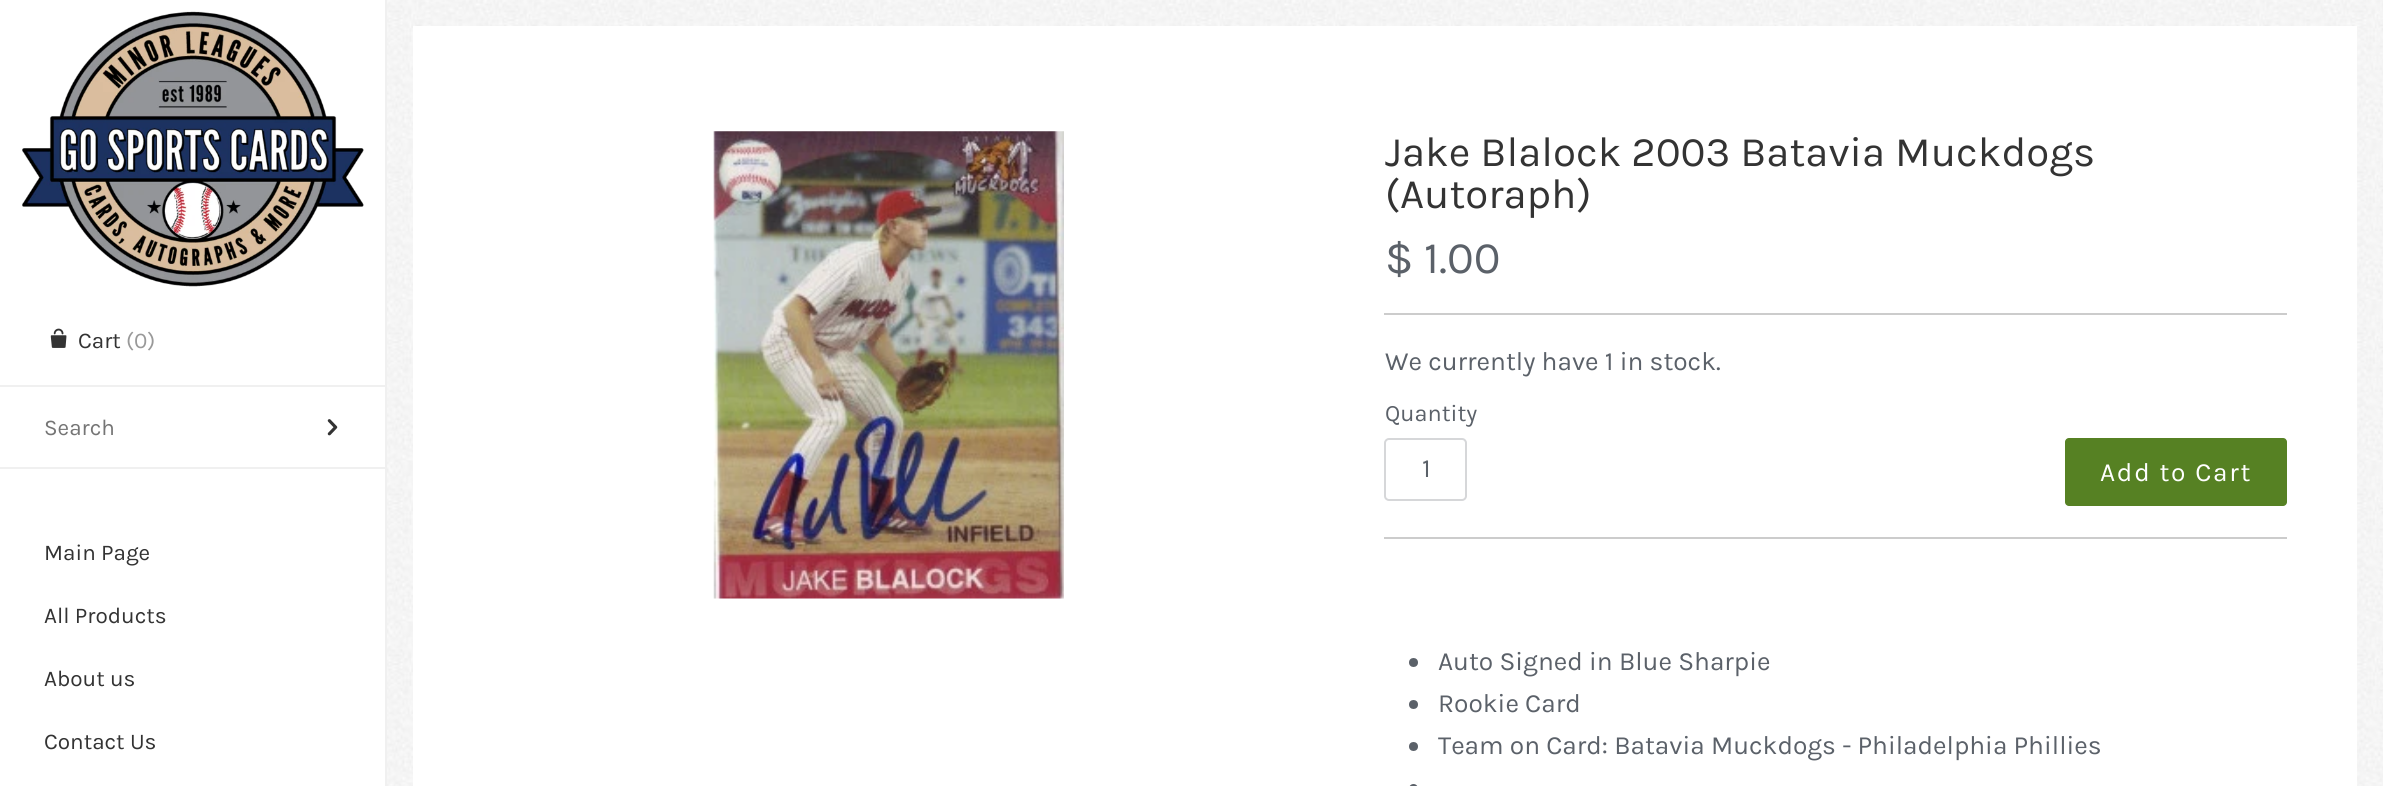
#include <cairo/cairo.h>
#include <math.h>
#include <stddef.h>

typedef struct { double x, y; const char *s; } line_t;
static cairo_t *cr;

static void rgb(unsigned color)
{
	cairo_set_source_rgb(cr, (color >> 16) / 255.0, (color >> 8 & 255) / 255.0, (color & 255) / 255.0);
}

static void tracked(double x, double y, const char *s, double letter, double word)
{
	cairo_move_to(cr, x, y);
	while (*s) {
		char ch[5] = {0};
		int n = 0;
		do ch[n++] = *s++; while ((*s & 0xC0) == 0x80);
		cairo_show_text(cr, ch);
		cairo_rel_move_to(cr, letter + word * (*ch == ' '), 0);
	}
}

static void rrect(double x, double y, double w, double h, double r)
{
	cairo_new_sub_path(cr);
	cairo_arc(cr, x + w - r, y + h - r, r, 0, M_PI / 2);
	cairo_arc(cr, x + r, y + h - r, r, M_PI / 2, M_PI);
	cairo_arc(cr, x + r, y + r, r, M_PI, 1.5 * M_PI);
	cairo_arc(cr, x + w - r, y + r, r, 1.5 * M_PI, 2 * M_PI);
	cairo_close_path(cr);
}

static void image(const char *path, double x, double y, double w, double h)
{
	cairo_surface_t *image = cairo_image_surface_create_from_png(path);
	cairo_save(cr);
	cairo_set_source_surface(cr, image, x, y);
	cairo_rectangle(cr, x, y, w, h);
	cairo_fill(cr);
	cairo_restore(cr);
	cairo_surface_destroy(image);
}

int main(void) {
	cairo_surface_t *surface = cairo_image_surface_create(CAIRO_FORMAT_RGB24, 2383, 786);
	cr = cairo_create(surface);
	cairo_font_options_t *options = cairo_font_options_create();
	cairo_font_options_set_hint_metrics(options, CAIRO_HINT_METRICS_OFF);
	cairo_font_options_set_hint_style(options, CAIRO_HINT_STYLE_NONE);
	cairo_set_font_options(cr, options);
	cairo_set_miter_limit(cr, 4);
	rgb(0xffffff);
	cairo_paint(cr);
	image("img/1.png", 387, 0, 1996, 786);
	rgb(0xf0f0f0);
	cairo_rectangle(cr, 385, 0, 2, 786);
	cairo_fill(cr);
	image("img/2.png", 22, 11, 342, 276);
	image("img/3.png", 50, 328, 17, 20);
	cairo_rectangle(cr, 0, 385, 385, 2);
	cairo_fill(cr);
	cairo_rectangle(cr, 0, 467, 385, 2);
	cairo_fill(cr);
	image("img/4.png", 327, 419, 11, 17);
	rgb(0xffffff);
	cairo_rectangle(cr, 413, 26, 1944, 760);
	cairo_fill(cr);
	image("img/5.png", 713, 131, 351, 468);
	rgb(0xcccccc);
	cairo_rectangle(cr, 1384, 313, 903, 2);
	cairo_fill(cr);
	rrect(1385, 439, 81, 61, 4);
	rgb(0xd6d7d9);
	cairo_stroke(cr);
	rgb(0x568123);
	rrect(2065, 438, 222, 68, 4);
	cairo_fill(cr);
	rgb(0xcccccc);
	cairo_rectangle(cr, 1384, 537, 903, 2);
	cairo_fill(cr);
	rgb(0x5b6169);
	cairo_arc(cr, 1413.5, 662.5, 4.5, 0, 2 * M_PI);
	cairo_fill(cr);
	cairo_arc(cr, 1413.5, 704.5, 4.5, 0, 2 * M_PI);
	cairo_fill(cr);
	cairo_arc(cr, 1413.5, 746.5, 4.5, 0, 2 * M_PI);
	cairo_fill(cr);
	rrect(1409, 784, 9, 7, 4.5);
	cairo_fill(cr);
	cairo_select_font_face(cr, "Karla", CAIRO_FONT_SLANT_NORMAL, CAIRO_FONT_WEIGHT_NORMAL);
	cairo_set_font_size(cr, 22.5);
	rgb(0x333333);
	cairo_move_to(cr, 78, 348);
	cairo_show_text(cr, "Cart");
	rgb(0x999999);
	cairo_move_to(cr, 126, 348);
	cairo_show_text(cr, "(0)");
	rgb(0x757575);
	cairo_move_to(cr, 44, 435);
	cairo_show_text(cr, "Search");
	rgb(0x333333);
	{
		static const line_t items[] = {
			{44, 560, "Main Page"},
			{44, 623, "All Products"},
			{44, 686, "About us"},
			{44, 749, "Contact Us"},
		};
		for (size_t i = 0; i < sizeof items / sizeof *items; i++) {
			cairo_move_to(cr, items[i].x, items[i].y);
			cairo_show_text(cr, items[i].s);
		}
	}
	cairo_set_font_size(cr, 42);
	cairo_move_to(cr, 1385, 166);
	cairo_show_text(cr, "Jake Blalock 2003 Batavia Muckdogs");
	cairo_move_to(cr, 1385, 208);
	cairo_show_text(cr, "(Autoraph)");
	cairo_set_font_size(cr, 45);
	rgb(0x5b6169);
	cairo_move_to(cr, 1385, 273);
	cairo_show_text(cr, "$ 1.00");
	cairo_set_font_size(cr, 26.25);
	cairo_move_to(cr, 1385, 370);
	cairo_show_text(cr, "We currently have 1 in stock.");
	cairo_set_font_size(cr, 23.5);
	cairo_move_to(cr, 1385, 421);
	cairo_show_text(cr, "Quantity");
	cairo_set_font_size(cr, 26.25);
	cairo_move_to(cr, 1422, 477);
	cairo_show_text(cr, "1");
	rgb(0xffffff);
	tracked(2100, 481, "Add to Cart", 1.75, 0);
	rgb(0x5b6169);
	{
		static const line_t items[] = {
			{1438, 670, "Auto Signed in Blue Sharpie"},
			{1438, 712, "Rookie Card"},
			{1438, 754, "Team on Card: Batavia Muckdogs - Philadelphia Phillies"},
		};
		for (size_t i = 0; i < sizeof items / sizeof *items; i++) {
			cairo_move_to(cr, items[i].x, items[i].y);
			cairo_show_text(cr, items[i].s);
		}
	}
	cairo_surface_write_to_png(surface, "page.png");
	cairo_font_options_destroy(options);
	cairo_destroy(cr);
	cairo_surface_destroy(surface);
	return 0;
}
